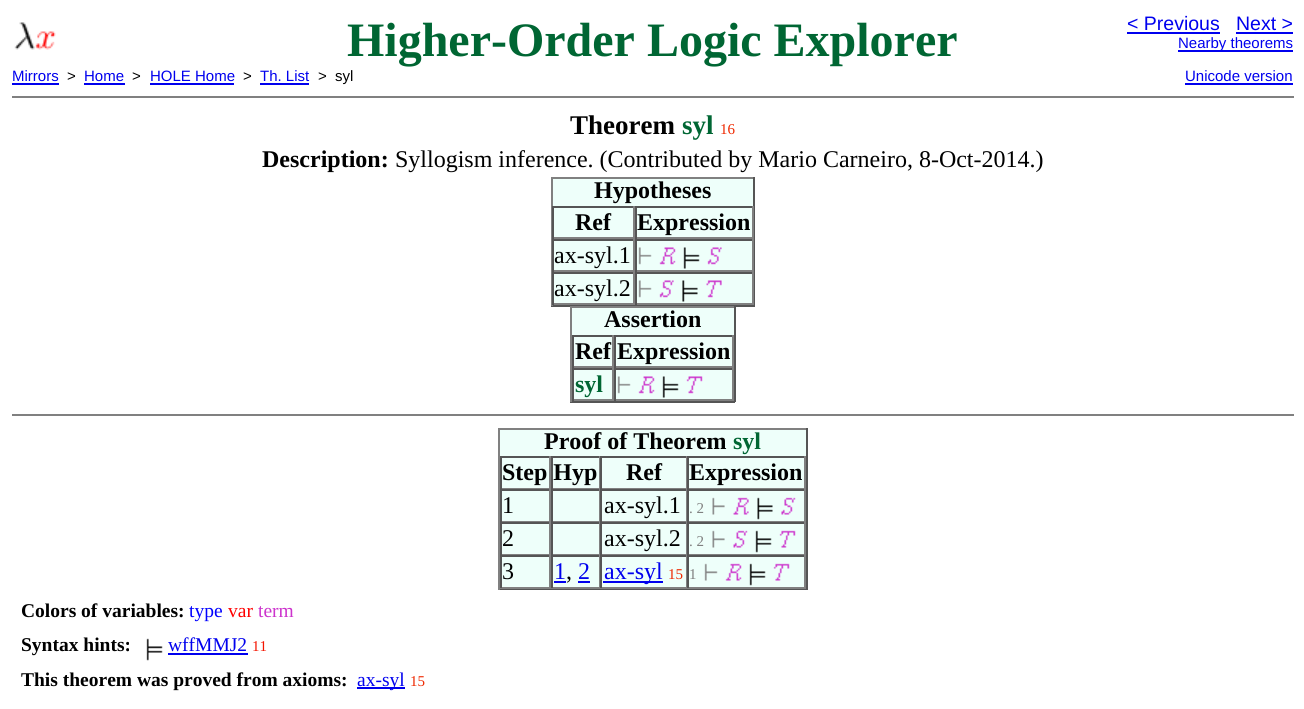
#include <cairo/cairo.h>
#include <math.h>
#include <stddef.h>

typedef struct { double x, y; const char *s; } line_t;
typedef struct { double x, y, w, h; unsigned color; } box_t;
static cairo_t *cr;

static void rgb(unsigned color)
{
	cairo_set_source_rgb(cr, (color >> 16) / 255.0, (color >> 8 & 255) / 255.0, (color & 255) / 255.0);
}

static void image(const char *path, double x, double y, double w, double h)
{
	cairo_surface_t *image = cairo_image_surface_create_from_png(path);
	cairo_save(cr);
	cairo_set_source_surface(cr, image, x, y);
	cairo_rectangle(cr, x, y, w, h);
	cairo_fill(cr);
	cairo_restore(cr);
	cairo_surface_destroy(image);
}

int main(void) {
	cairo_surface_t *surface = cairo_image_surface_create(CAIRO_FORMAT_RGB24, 1304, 709);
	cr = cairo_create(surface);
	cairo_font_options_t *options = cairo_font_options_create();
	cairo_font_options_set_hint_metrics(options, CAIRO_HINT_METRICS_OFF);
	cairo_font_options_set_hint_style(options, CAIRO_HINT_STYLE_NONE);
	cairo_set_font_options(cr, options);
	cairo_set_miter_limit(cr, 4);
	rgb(0xffffff);
	cairo_paint(cr);
	image("img/1.png", 14, 22, 42, 28);
	{
		static const box_t items[] = {
			{1127, 32, 93, 2, 0x0000ee},
			{1236, 32, 57, 2, 0x0000ee},
			{1178, 50, 115, 2, 0x0000ee},
			{12, 83, 47, 2, 0x0000ee},
			{84, 83, 41, 2, 0x0000ee},
			{150, 83, 84, 2, 0x0000ee},
			{260, 83, 49, 2, 0x0000ee},
			{1185, 83, 108, 2, 0x0000ee},
			{12, 96, 1282, 2, 0x808080},
			{553, 179, 200, 124, 0xeefffa},
			{551, 177, 204, 2, 0x808080},
			{753, 177, 2, 129, 0x555555},
			{551, 305, 204, 2, 0x555555},
			{551, 177, 2, 129, 0x808080},
			{552, 206, 201, 2, 0x555555},
			{633, 206, 2, 33, 0x808080},
			{552, 237, 83, 2, 0x808080},
			{552, 206, 2, 33, 0x555555},
			{752, 206, 2, 33, 0x808080},
			{635, 237, 118, 2, 0x808080},
			{635, 206, 2, 33, 0x555555},
			{552, 239, 201, 2, 0x555555},
			{633, 239, 2, 33, 0x808080},
			{552, 270, 83, 2, 0x808080},
			{552, 239, 2, 33, 0x555555},
			{752, 239, 2, 33, 0x808080},
			{635, 270, 118, 2, 0x808080},
			{635, 239, 2, 33, 0x555555},
		};
		for (size_t i = 0; i < sizeof items / sizeof *items; i++) {
			rgb(items[i].color);
			cairo_rectangle(cr, items[i].x, items[i].y, items[i].w, items[i].h);
			cairo_fill(cr);
		}
	}
	image("img/2.png", 638, 247, 14, 18);
	image("img/3.png", 659, 247, 17, 18);
	image("img/4.png", 683, 247, 17, 22);
	image("img/5.png", 707, 247, 15, 18);
	{
		static const box_t items[] = {
			{552, 272, 201, 2, 0x555555},
			{633, 272, 2, 33, 0x808080},
			{552, 303, 83, 2, 0x808080},
			{552, 272, 2, 33, 0x555555},
			{752, 272, 2, 33, 0x808080},
			{635, 303, 118, 2, 0x808080},
			{635, 272, 2, 33, 0x555555},
		};
		for (size_t i = 0; i < sizeof items / sizeof *items; i++) {
			rgb(items[i].color);
			cairo_rectangle(cr, items[i].x, items[i].y, items[i].w, items[i].h);
			cairo_fill(cr);
		}
	}
	image("img/2.png", 638, 280, 14, 18);
	image("img/5.png", 659, 280, 15, 18);
	image("img/6.png", 682, 280, 16, 22);
	image("img/7.png", 706, 280, 16, 18);
	{
		static const box_t items[] = {
			{572, 308, 162, 91, 0xeefffa},
			{570, 306, 165, 2, 0x808080},
			{734, 306, 2, 96, 0x555555},
			{570, 401, 165, 2, 0x555555},
			{570, 306, 2, 96, 0x808080},
			{572, 335, 162, 2, 0x555555},
			{732, 335, 2, 33, 0x808080},
			{614, 366, 120, 2, 0x808080},
			{614, 335, 2, 33, 0x555555},
			{612, 335, 2, 33, 0x808080},
			{572, 366, 42, 2, 0x808080},
			{572, 335, 2, 33, 0x555555},
			{572, 368, 162, 2, 0x555555},
			{612, 368, 2, 33, 0x808080},
			{572, 399, 42, 2, 0x808080},
			{572, 368, 2, 33, 0x555555},
			{732, 368, 2, 33, 0x808080},
			{614, 399, 120, 2, 0x808080},
			{614, 368, 2, 33, 0x555555},
		};
		for (size_t i = 0; i < sizeof items / sizeof *items; i++) {
			rgb(items[i].color);
			cairo_rectangle(cr, items[i].x, items[i].y, items[i].w, items[i].h);
			cairo_fill(cr);
		}
	}
	image("img/2.png", 617, 376, 14, 18);
	image("img/3.png", 638, 376, 17, 18);
	image("img/4.png", 662, 376, 17, 22);
	image("img/8.png", 686, 376, 17, 18);
	{
		static const box_t items[] = {
			{12, 414, 1282, 2, 0x808080},
			{500, 430, 306, 157, 0xeefffa},
			{498, 428, 309, 2, 0x808080},
			{806, 428, 2, 162, 0x555555},
			{498, 588, 309, 2, 0x555555},
			{498, 428, 2, 162, 0x808080},
			{500, 456, 306, 2, 0x555555},
			{599, 456, 1, 33, 0x808080},
			{551, 488, 49, 1, 0x808080},
			{551, 456, 2, 33, 0x555555},
			{686, 456, 1, 33, 0x808080},
			{600, 488, 87, 1, 0x808080},
			{600, 456, 2, 33, 0x555555},
			{804, 456, 2, 33, 0x808080},
			{687, 488, 119, 1, 0x808080},
			{687, 456, 2, 33, 0x555555},
			{549, 456, 2, 33, 0x808080},
			{500, 488, 51, 1, 0x808080},
			{500, 456, 2, 33, 0x555555},
			{500, 489, 306, 2, 0x555555},
			{549, 489, 2, 33, 0x808080},
			{500, 521, 51, 1, 0x808080},
			{500, 489, 2, 33, 0x555555},
			{599, 489, 1, 33, 0x808080},
			{551, 521, 49, 1, 0x808080},
			{551, 489, 2, 33, 0x555555},
			{686, 489, 1, 33, 0x808080},
			{600, 521, 87, 1, 0x808080},
			{600, 489, 2, 33, 0x555555},
			{804, 489, 2, 33, 0x808080},
			{687, 521, 119, 1, 0x808080},
			{687, 489, 2, 33, 0x555555},
		};
		for (size_t i = 0; i < sizeof items / sizeof *items; i++) {
			rgb(items[i].color);
			cairo_rectangle(cr, items[i].x, items[i].y, items[i].w, items[i].h);
			cairo_fill(cr);
		}
	}
	image("img/9.png", 712, 497, 13, 18);
	image("img/10.png", 733, 497, 16, 18);
	image("img/11.png", 757, 497, 16, 23);
	image("img/12.png", 781, 497, 15, 18);
	{
		static const box_t items[] = {
			{500, 522, 306, 2, 0x555555},
			{549, 522, 2, 33, 0x808080},
			{500, 554, 51, 1, 0x808080},
			{500, 522, 2, 33, 0x555555},
			{599, 522, 1, 33, 0x808080},
			{551, 554, 49, 1, 0x808080},
			{551, 522, 2, 33, 0x555555},
			{686, 522, 1, 33, 0x808080},
			{600, 554, 87, 1, 0x808080},
			{600, 522, 2, 33, 0x555555},
			{804, 522, 2, 33, 0x808080},
			{687, 554, 119, 1, 0x808080},
			{687, 522, 2, 33, 0x555555},
		};
		for (size_t i = 0; i < sizeof items / sizeof *items; i++) {
			rgb(items[i].color);
			cairo_rectangle(cr, items[i].x, items[i].y, items[i].w, items[i].h);
			cairo_fill(cr);
		}
	}
	image("img/9.png", 712, 530, 13, 18);
	image("img/13.png", 733, 530, 15, 18);
	image("img/14.png", 755, 530, 17, 23);
	image("img/15.png", 779, 530, 17, 18);
	{
		static const box_t items[] = {
			{500, 555, 306, 2, 0x555555},
			{549, 555, 2, 33, 0x808080},
			{500, 587, 51, 2, 0x808080},
			{500, 555, 2, 33, 0x555555},
			{599, 555, 1, 33, 0x808080},
			{551, 587, 49, 2, 0x808080},
			{551, 555, 2, 33, 0x555555},
			{554, 581, 12, 2, 0x0000ee},
			{578, 581, 12, 2, 0x0000ee},
			{686, 555, 1, 33, 0x808080},
			{600, 587, 87, 2, 0x808080},
			{600, 555, 2, 33, 0x555555},
			{603, 581, 60, 2, 0x0000ee},
			{804, 555, 2, 33, 0x808080},
			{687, 587, 119, 2, 0x808080},
			{687, 555, 2, 33, 0x555555},
		};
		for (size_t i = 0; i < sizeof items / sizeof *items; i++) {
			rgb(items[i].color);
			cairo_rectangle(cr, items[i].x, items[i].y, items[i].w, items[i].h);
			cairo_fill(cr);
		}
	}
	image("img/16.png", 704, 563, 14, 18);
	image("img/17.png", 725, 563, 17, 18);
	image("img/14.png", 749, 563, 17, 23);
	image("img/15.png", 773, 563, 17, 18);
	image("img/18.png", 146, 638, 17, 23);
	rgb(0x0000ee);
	cairo_rectangle(cr, 168, 653, 80, 2);
	cairo_fill(cr);
	cairo_rectangle(cr, 357, 687, 48, 2);
	cairo_fill(cr);
	cairo_select_font_face(cr, "Liberation Serif", CAIRO_FONT_SLANT_NORMAL, CAIRO_FONT_WEIGHT_BOLD);
	cairo_set_font_size(cr, 48);
	rgb(0x006633);
	cairo_move_to(cr, 347, 56);
	cairo_show_text(cr, "Higher-Order Logic Explorer");
	cairo_select_font_face(cr, "Liberation Sans", CAIRO_FONT_SLANT_NORMAL, CAIRO_FONT_WEIGHT_NORMAL);
	cairo_set_font_size(cr, 19.5);
	rgb(0x0000ee);
	cairo_move_to(cr, 1127, 30);
	cairo_show_text(cr, "< Previous");
	cairo_move_to(cr, 1236, 30);
	cairo_show_text(cr, "Next >");
	cairo_set_font_size(cr, 15);
	cairo_move_to(cr, 1178, 48);
	cairo_show_text(cr, "Nearby theorems");
	cairo_move_to(cr, 12, 81);
	cairo_show_text(cr, "Mirrors");
	rgb(0x000000);
	cairo_move_to(cr, 67, 81);
	cairo_show_text(cr, ">");
	rgb(0x0000ee);
	cairo_move_to(cr, 84, 81);
	cairo_show_text(cr, "Home");
	rgb(0x000000);
	cairo_move_to(cr, 132, 81);
	cairo_show_text(cr, ">");
	rgb(0x0000ee);
	cairo_move_to(cr, 150, 81);
	cairo_show_text(cr, "HOLE Home");
	rgb(0x000000);
	cairo_move_to(cr, 243, 81);
	cairo_show_text(cr, ">");
	rgb(0x0000ee);
	cairo_move_to(cr, 260, 81);
	cairo_show_text(cr, "Th. List");
	rgb(0x000000);
	cairo_move_to(cr, 318, 81);
	cairo_show_text(cr, ">");
	cairo_move_to(cr, 335, 81);
	cairo_show_text(cr, "syl");
	rgb(0x0000ee);
	cairo_move_to(cr, 1185, 81);
	cairo_show_text(cr, "Unicode version");
	cairo_select_font_face(cr, "Liberation Serif", CAIRO_FONT_SLANT_NORMAL, CAIRO_FONT_WEIGHT_BOLD);
	cairo_set_font_size(cr, 27);
	rgb(0x000000);
	cairo_move_to(cr, 570, 134);
	cairo_show_text(cr, "Theorem");
	rgb(0x006633);
	cairo_move_to(cr, 682, 134);
	cairo_show_text(cr, "syl");
	cairo_select_font_face(cr, "Liberation Serif", CAIRO_FONT_SLANT_NORMAL, CAIRO_FONT_WEIGHT_NORMAL);
	cairo_set_font_size(cr, 15);
	rgb(0xee2800);
	cairo_move_to(cr, 720, 134);
	cairo_show_text(cr, "16");
	cairo_select_font_face(cr, "Liberation Serif", CAIRO_FONT_SLANT_NORMAL, CAIRO_FONT_WEIGHT_BOLD);
	cairo_set_font_size(cr, 24);
	rgb(0x000000);
	cairo_move_to(cr, 262, 167);
	cairo_show_text(cr, "Description:");
	cairo_select_font_face(cr, "Liberation Serif", CAIRO_FONT_SLANT_NORMAL, CAIRO_FONT_WEIGHT_NORMAL);
	cairo_move_to(cr, 395, 167);
	cairo_show_text(cr, "Syllogism inference. (Contributed by Mario Carneiro, 8-Oct-2014.)");
	cairo_select_font_face(cr, "Liberation Serif", CAIRO_FONT_SLANT_NORMAL, CAIRO_FONT_WEIGHT_BOLD);
	{
		static const line_t items[] = {
			{594, 198, "Hypotheses"},
			{575, 230, "Ref"},
			{637, 230, "Expression"},
		};
		for (size_t i = 0; i < sizeof items / sizeof *items; i++) {
			cairo_move_to(cr, items[i].x, items[i].y);
			cairo_show_text(cr, items[i].s);
		}
	}
	cairo_select_font_face(cr, "Liberation Serif", CAIRO_FONT_SLANT_NORMAL, CAIRO_FONT_WEIGHT_NORMAL);
	cairo_move_to(cr, 554, 263);
	cairo_show_text(cr, "ax-syl.1");
	cairo_move_to(cr, 554, 296);
	cairo_show_text(cr, "ax-syl.2");
	cairo_select_font_face(cr, "Liberation Serif", CAIRO_FONT_SLANT_NORMAL, CAIRO_FONT_WEIGHT_BOLD);
	cairo_move_to(cr, 604, 327);
	cairo_show_text(cr, "Assertion");
	cairo_move_to(cr, 575, 359);
	cairo_show_text(cr, "Ref Expression");
	rgb(0x006633);
	cairo_move_to(cr, 575, 392);
	cairo_show_text(cr, "syl");
	rgb(0x000000);
	cairo_move_to(cr, 544, 449);
	cairo_show_text(cr, "Proof of Theorem");
	rgb(0x006633);
	cairo_move_to(cr, 733, 449);
	cairo_show_text(cr, "syl");
	rgb(0x000000);
	{
		static const line_t items[] = {
			{626, 480, "Ref"},
			{689, 480, "Expression"},
			{502, 480, "Step Hyp"},
		};
		for (size_t i = 0; i < sizeof items / sizeof *items; i++) {
			cairo_move_to(cr, items[i].x, items[i].y);
			cairo_show_text(cr, items[i].s);
		}
	}
	cairo_select_font_face(cr, "Liberation Serif", CAIRO_FONT_SLANT_NORMAL, CAIRO_FONT_WEIGHT_NORMAL);
	cairo_move_to(cr, 502, 513);
	cairo_show_text(cr, "1");
	cairo_move_to(cr, 604, 513);
	cairo_show_text(cr, "ax-syl.1");
	cairo_set_font_size(cr, 15);
	rgb(0x808080);
	cairo_move_to(cr, 689, 513);
	cairo_show_text(cr, ". 2");
	cairo_set_font_size(cr, 24);
	rgb(0x000000);
	cairo_move_to(cr, 502, 546);
	cairo_show_text(cr, "2");
	cairo_move_to(cr, 604, 546);
	cairo_show_text(cr, "ax-syl.2");
	cairo_set_font_size(cr, 15);
	rgb(0x808080);
	cairo_move_to(cr, 689, 546);
	cairo_show_text(cr, ". 2");
	cairo_set_font_size(cr, 24);
	rgb(0x000000);
	cairo_move_to(cr, 502, 579);
	cairo_show_text(cr, "3");
	rgb(0x0000ee);
	cairo_move_to(cr, 554, 579);
	cairo_show_text(cr, "1");
	rgb(0x000000);
	cairo_move_to(cr, 566, 579);
	cairo_show_text(cr, ",");
	rgb(0x0000ee);
	cairo_move_to(cr, 578, 579);
	cairo_show_text(cr, "2");
	cairo_move_to(cr, 604, 579);
	cairo_show_text(cr, "ax-syl");
	cairo_set_font_size(cr, 15);
	rgb(0xee2800);
	cairo_move_to(cr, 668, 579);
	cairo_show_text(cr, "15");
	rgb(0x808080);
	cairo_move_to(cr, 689, 579);
	cairo_show_text(cr, "1");
	cairo_select_font_face(cr, "Liberation Serif", CAIRO_FONT_SLANT_NORMAL, CAIRO_FONT_WEIGHT_BOLD);
	cairo_set_font_size(cr, 19.5);
	rgb(0x000000);
	cairo_move_to(cr, 21, 617);
	cairo_show_text(cr, "Colors of variables:");
	cairo_select_font_face(cr, "Liberation Serif", CAIRO_FONT_SLANT_NORMAL, CAIRO_FONT_WEIGHT_NORMAL);
	rgb(0x0000ff);
	cairo_move_to(cr, 189, 617);
	cairo_show_text(cr, "type");
	rgb(0xff0000);
	cairo_move_to(cr, 228, 617);
	cairo_show_text(cr, "var");
	rgb(0xcc33cc);
	cairo_move_to(cr, 258, 617);
	cairo_show_text(cr, "term");
	cairo_select_font_face(cr, "Liberation Serif", CAIRO_FONT_SLANT_NORMAL, CAIRO_FONT_WEIGHT_BOLD);
	rgb(0x000000);
	cairo_move_to(cr, 21, 651);
	cairo_show_text(cr, "Syntax hints:");
	cairo_select_font_face(cr, "Liberation Serif", CAIRO_FONT_SLANT_NORMAL, CAIRO_FONT_WEIGHT_NORMAL);
	rgb(0x0000ee);
	cairo_move_to(cr, 168, 651);
	cairo_show_text(cr, "wffMMJ2");
	cairo_set_font_size(cr, 15);
	rgb(0xf41400);
	cairo_move_to(cr, 252, 651);
	cairo_show_text(cr, "11");
	cairo_select_font_face(cr, "Liberation Serif", CAIRO_FONT_SLANT_NORMAL, CAIRO_FONT_WEIGHT_BOLD);
	cairo_set_font_size(cr, 19.5);
	rgb(0x000000);
	cairo_move_to(cr, 21, 686);
	cairo_show_text(cr, "This theorem was proved from axioms:");
	cairo_select_font_face(cr, "Liberation Serif", CAIRO_FONT_SLANT_NORMAL, CAIRO_FONT_WEIGHT_NORMAL);
	rgb(0x0000ee);
	cairo_move_to(cr, 357, 686);
	cairo_show_text(cr, "ax-syl");
	cairo_set_font_size(cr, 15);
	rgb(0xee2800);
	cairo_move_to(cr, 410, 686);
	cairo_show_text(cr, "15");
	cairo_surface_write_to_png(surface, "page.png");
	cairo_font_options_destroy(options);
	cairo_destroy(cr);
	cairo_surface_destroy(surface);
	return 0;
}
